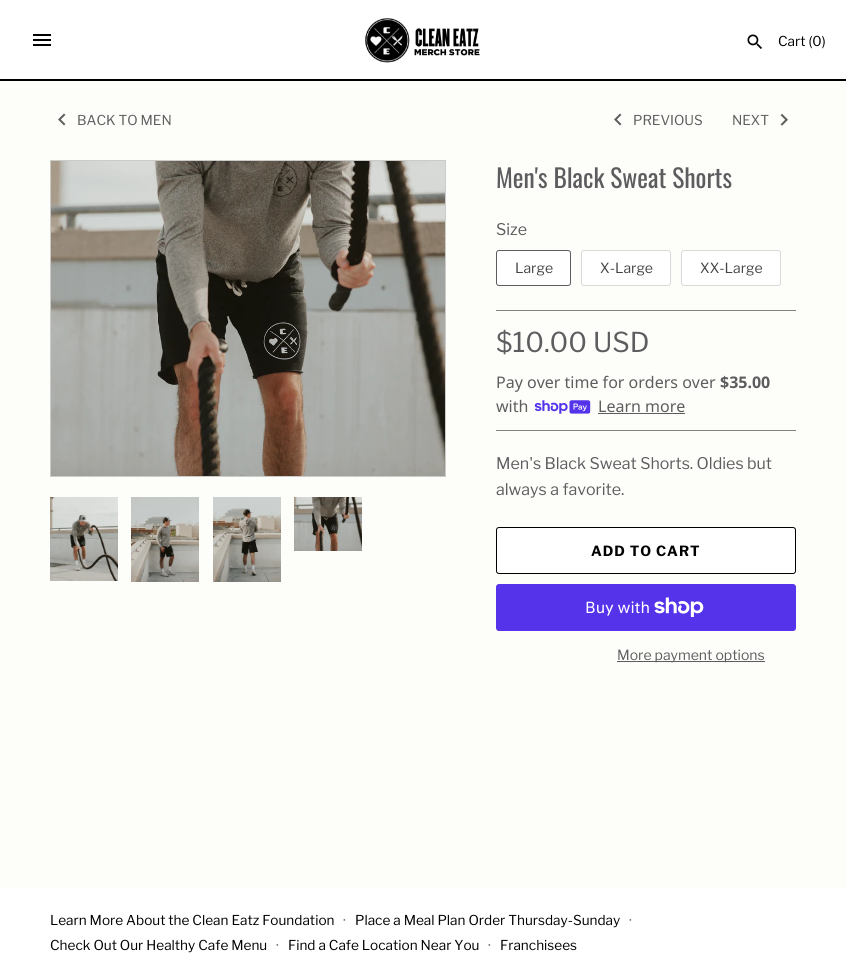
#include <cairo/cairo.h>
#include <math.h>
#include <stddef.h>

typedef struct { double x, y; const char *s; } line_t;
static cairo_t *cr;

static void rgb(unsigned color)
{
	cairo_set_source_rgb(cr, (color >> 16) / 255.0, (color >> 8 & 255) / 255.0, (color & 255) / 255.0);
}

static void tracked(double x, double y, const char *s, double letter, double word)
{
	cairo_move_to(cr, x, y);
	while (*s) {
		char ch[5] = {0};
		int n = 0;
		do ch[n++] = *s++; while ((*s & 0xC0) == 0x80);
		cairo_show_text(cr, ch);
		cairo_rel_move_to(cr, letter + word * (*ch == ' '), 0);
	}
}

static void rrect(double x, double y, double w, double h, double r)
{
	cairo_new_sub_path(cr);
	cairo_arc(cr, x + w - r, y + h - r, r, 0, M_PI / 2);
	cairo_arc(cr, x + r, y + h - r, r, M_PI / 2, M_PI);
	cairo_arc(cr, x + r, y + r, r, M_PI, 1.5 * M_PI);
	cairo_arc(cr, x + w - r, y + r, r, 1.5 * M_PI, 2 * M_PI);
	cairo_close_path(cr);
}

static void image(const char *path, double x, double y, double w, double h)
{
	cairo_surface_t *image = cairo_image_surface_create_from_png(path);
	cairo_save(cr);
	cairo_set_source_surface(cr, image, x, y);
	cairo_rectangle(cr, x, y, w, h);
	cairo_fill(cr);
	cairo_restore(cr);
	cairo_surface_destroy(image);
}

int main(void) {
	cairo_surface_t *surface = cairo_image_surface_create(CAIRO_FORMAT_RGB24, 846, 972);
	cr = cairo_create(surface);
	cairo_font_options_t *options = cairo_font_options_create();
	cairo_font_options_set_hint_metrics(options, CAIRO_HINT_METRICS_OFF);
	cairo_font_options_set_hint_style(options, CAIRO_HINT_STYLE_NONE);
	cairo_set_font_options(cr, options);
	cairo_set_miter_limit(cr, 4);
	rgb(0xfdfdf9);
	cairo_paint(cr);
	rgb(0xffffff);
	cairo_rectangle(cr, 0, 0, 846, 79);
	cairo_fill(cr);
	image("img/1.png", 33, 34, 18, 12);
	image("img/2.png", 365, 18, 115, 45);
	image("img/3.png", 747, 34, 15, 15);
	rgb(0x000000);
	cairo_rectangle(cr, 0, 79, 846, 2);
	cairo_fill(cr);
	image("img/4.png", 58, 113, 8, 13);
	image("img/4.png", 614, 113, 8, 13);
	image("img/5.png", 780, 113, 8, 13);
	cairo_rectangle(cr, 50.5, 160.5, 395, 316);
	rgb(0xcbccca);
	cairo_set_line_width(cr, 1);
	cairo_stroke(cr);
	image("img/6.png", 51, 161, 394, 315);
	image("img/7.png", 50, 497, 68, 84);
	image("img/8.png", 131, 497, 68, 85);
	image("img/9.png", 213, 497, 68, 85);
	image("img/10.png", 294, 497, 68, 54);
	rgb(0xffffff);
	rrect(496.5, 250.5, 74, 35, 2.5);
	cairo_fill_preserve(cr);
	rgb(0x5d5d60);
	cairo_stroke(cr);
	rgb(0xffffff);
	rrect(581, 250, 90, 36, 3);
	cairo_fill(cr);
	rrect(581.5, 250.5, 89, 35, 2.5);
	cairo_set_source_rgba(cr, 0, 0, 0, 0.15);
	cairo_stroke(cr);
	rgb(0xffffff);
	rrect(681, 250, 100, 36, 3);
	cairo_fill(cr);
	rrect(681.5, 250.5, 99, 35, 2.5);
	cairo_set_source_rgba(cr, 0, 0, 0, 0.15);
	cairo_stroke(cr);
	rgb(0x808284);
	cairo_rectangle(cr, 496, 310, 300, 1);
	cairo_fill(cr);
	image("img/11.png", 534, 400, 57, 14);
	rgb(0x5d5d60);
	cairo_rectangle(cr, 598, 413, 87, 1);
	cairo_fill(cr);
	rgb(0x808284);
	cairo_rectangle(cr, 496, 430, 300, 1);
	cairo_fill(cr);
	rgb(0xffffff);
	rrect(496.5, 527.5, 299, 46, 2.5);
	cairo_fill_preserve(cr);
	rgb(0x000000);
	cairo_stroke(cr);
	rgb(0x5433eb);
	rrect(496, 584, 300, 47, 3);
	cairo_fill(cr);
	image("img/12.png", 654, 597, 50, 20);
	rgb(0x5d5d60);
	cairo_rectangle(cr, 617, 661, 148, 1);
	cairo_fill(cr);
	rgb(0xffffff);
	cairo_rectangle(cr, 0, 888, 846, 84);
	cairo_fill(cr);
	cairo_select_font_face(cr, "Libre Franklin", CAIRO_FONT_SLANT_NORMAL, CAIRO_FONT_WEIGHT_NORMAL);
	cairo_set_font_size(cr, 13.6);
	rgb(0x000000);
	cairo_move_to(cr, 778, 46);
	cairo_show_text(cr, "Cart (0)");
	rgb(0x5d5d60);
	{
		static const line_t items[] = {
			{77, 125, "BACK TO MEN"},
			{633, 125, "PREVIOUS"},
			{732, 125, "NEXT"},
		};
		for (size_t i = 0; i < sizeof items / sizeof *items; i++) {
			cairo_move_to(cr, items[i].x, items[i].y);
			cairo_show_text(cr, items[i].s);
		}
	}
	cairo_select_font_face(cr, "Oswald", CAIRO_FONT_SLANT_NORMAL, CAIRO_FONT_WEIGHT_NORMAL);
	cairo_set_font_size(cr, 25.5);
	cairo_move_to(cr, 496, 188);
	cairo_show_text(cr, "Men's Black Sweat Shorts");
	cairo_select_font_face(cr, "Libre Franklin", CAIRO_FONT_SLANT_NORMAL, CAIRO_FONT_WEIGHT_NORMAL);
	cairo_set_font_size(cr, 16);
	cairo_move_to(cr, 496, 235);
	cairo_show_text(cr, "Size");
	cairo_set_font_size(cr, 14);
	rgb(0x444444);
	{
		static const line_t items[] = {
			{515, 273, "Large"},
			{600, 273, "X-Large"},
			{700, 273, "XX-Large"},
		};
		for (size_t i = 0; i < sizeof items / sizeof *items; i++) {
			cairo_move_to(cr, items[i].x, items[i].y);
			cairo_show_text(cr, items[i].s);
		}
	}
	cairo_set_font_size(cr, 27.25);
	rgb(0x5d5d60);
	cairo_move_to(cr, 496, 352);
	cairo_show_text(cr, "$10.00 USD");
	cairo_select_font_face(cr, "Noto Sans", CAIRO_FONT_SLANT_NORMAL, CAIRO_FONT_WEIGHT_NORMAL);
	cairo_set_font_size(cr, 16);
	cairo_move_to(cr, 496, 388);
	cairo_show_text(cr, "Pay over time for orders over");
	cairo_select_font_face(cr, "Noto Sans", CAIRO_FONT_SLANT_NORMAL, CAIRO_FONT_WEIGHT_BOLD);
	cairo_move_to(cr, 720, 388);
	cairo_show_text(cr, "$35.00");
	cairo_select_font_face(cr, "Noto Sans", CAIRO_FONT_SLANT_NORMAL, CAIRO_FONT_WEIGHT_NORMAL);
	cairo_move_to(cr, 496, 412);
	cairo_show_text(cr, "with");
	cairo_move_to(cr, 598, 412);
	cairo_show_text(cr, "Learn more");
	cairo_select_font_face(cr, "Libre Franklin", CAIRO_FONT_SLANT_NORMAL, CAIRO_FONT_WEIGHT_NORMAL);
	cairo_move_to(cr, 496, 469);
	cairo_show_text(cr, "Men's Black Sweat Shorts. Oldies but");
	cairo_move_to(cr, 496, 495);
	cairo_show_text(cr, "always a favorite.");
	cairo_select_font_face(cr, "Libre Franklin", CAIRO_FONT_SLANT_NORMAL, CAIRO_FONT_WEIGHT_BOLD);
	cairo_set_font_size(cr, 14);
	rgb(0x000000);
	tracked(591, 556, "ADD TO CART", 1, 0);
	cairo_select_font_face(cr, "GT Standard", CAIRO_FONT_SLANT_NORMAL, CAIRO_FONT_WEIGHT_NORMAL);
	cairo_set_font_size(cr, 16);
	rgb(0xffffff);
	cairo_move_to(cr, 585, 613);
	cairo_show_text(cr, "Buy with");
	cairo_select_font_face(cr, "Libre Franklin", CAIRO_FONT_SLANT_NORMAL, CAIRO_FONT_WEIGHT_NORMAL);
	cairo_set_font_size(cr, 14);
	rgb(0x5d5d60);
	cairo_move_to(cr, 617, 660);
	cairo_show_text(cr, "More payment options");
	cairo_set_font_size(cr, 13.6);
	rgb(0x000000);
	cairo_move_to(cr, 50, 925);
	cairo_show_text(cr, "Learn More About the Clean Eatz Foundation");
	rgb(0x595959);
	cairo_move_to(cr, 343, 925);
	cairo_show_text(cr, "·");
	rgb(0x000000);
	cairo_move_to(cr, 355, 925);
	cairo_show_text(cr, "Place a Meal Plan Order Thursday-Sunday");
	rgb(0x595959);
	cairo_move_to(cr, 629, 925);
	cairo_show_text(cr, "·");
	rgb(0x000000);
	cairo_move_to(cr, 50, 950);
	cairo_show_text(cr, "Check Out Our Healthy Cafe Menu");
	rgb(0x595959);
	cairo_move_to(cr, 276, 950);
	cairo_show_text(cr, "·");
	rgb(0x000000);
	cairo_move_to(cr, 288, 950);
	cairo_show_text(cr, "Find a Cafe Location Near You");
	rgb(0x595959);
	cairo_move_to(cr, 488, 950);
	cairo_show_text(cr, "·");
	rgb(0x000000);
	cairo_move_to(cr, 500, 950);
	cairo_show_text(cr, "Franchisees");
	cairo_surface_write_to_png(surface, "page.png");
	cairo_font_options_destroy(options);
	cairo_destroy(cr);
	cairo_surface_destroy(surface);
	return 0;
}
